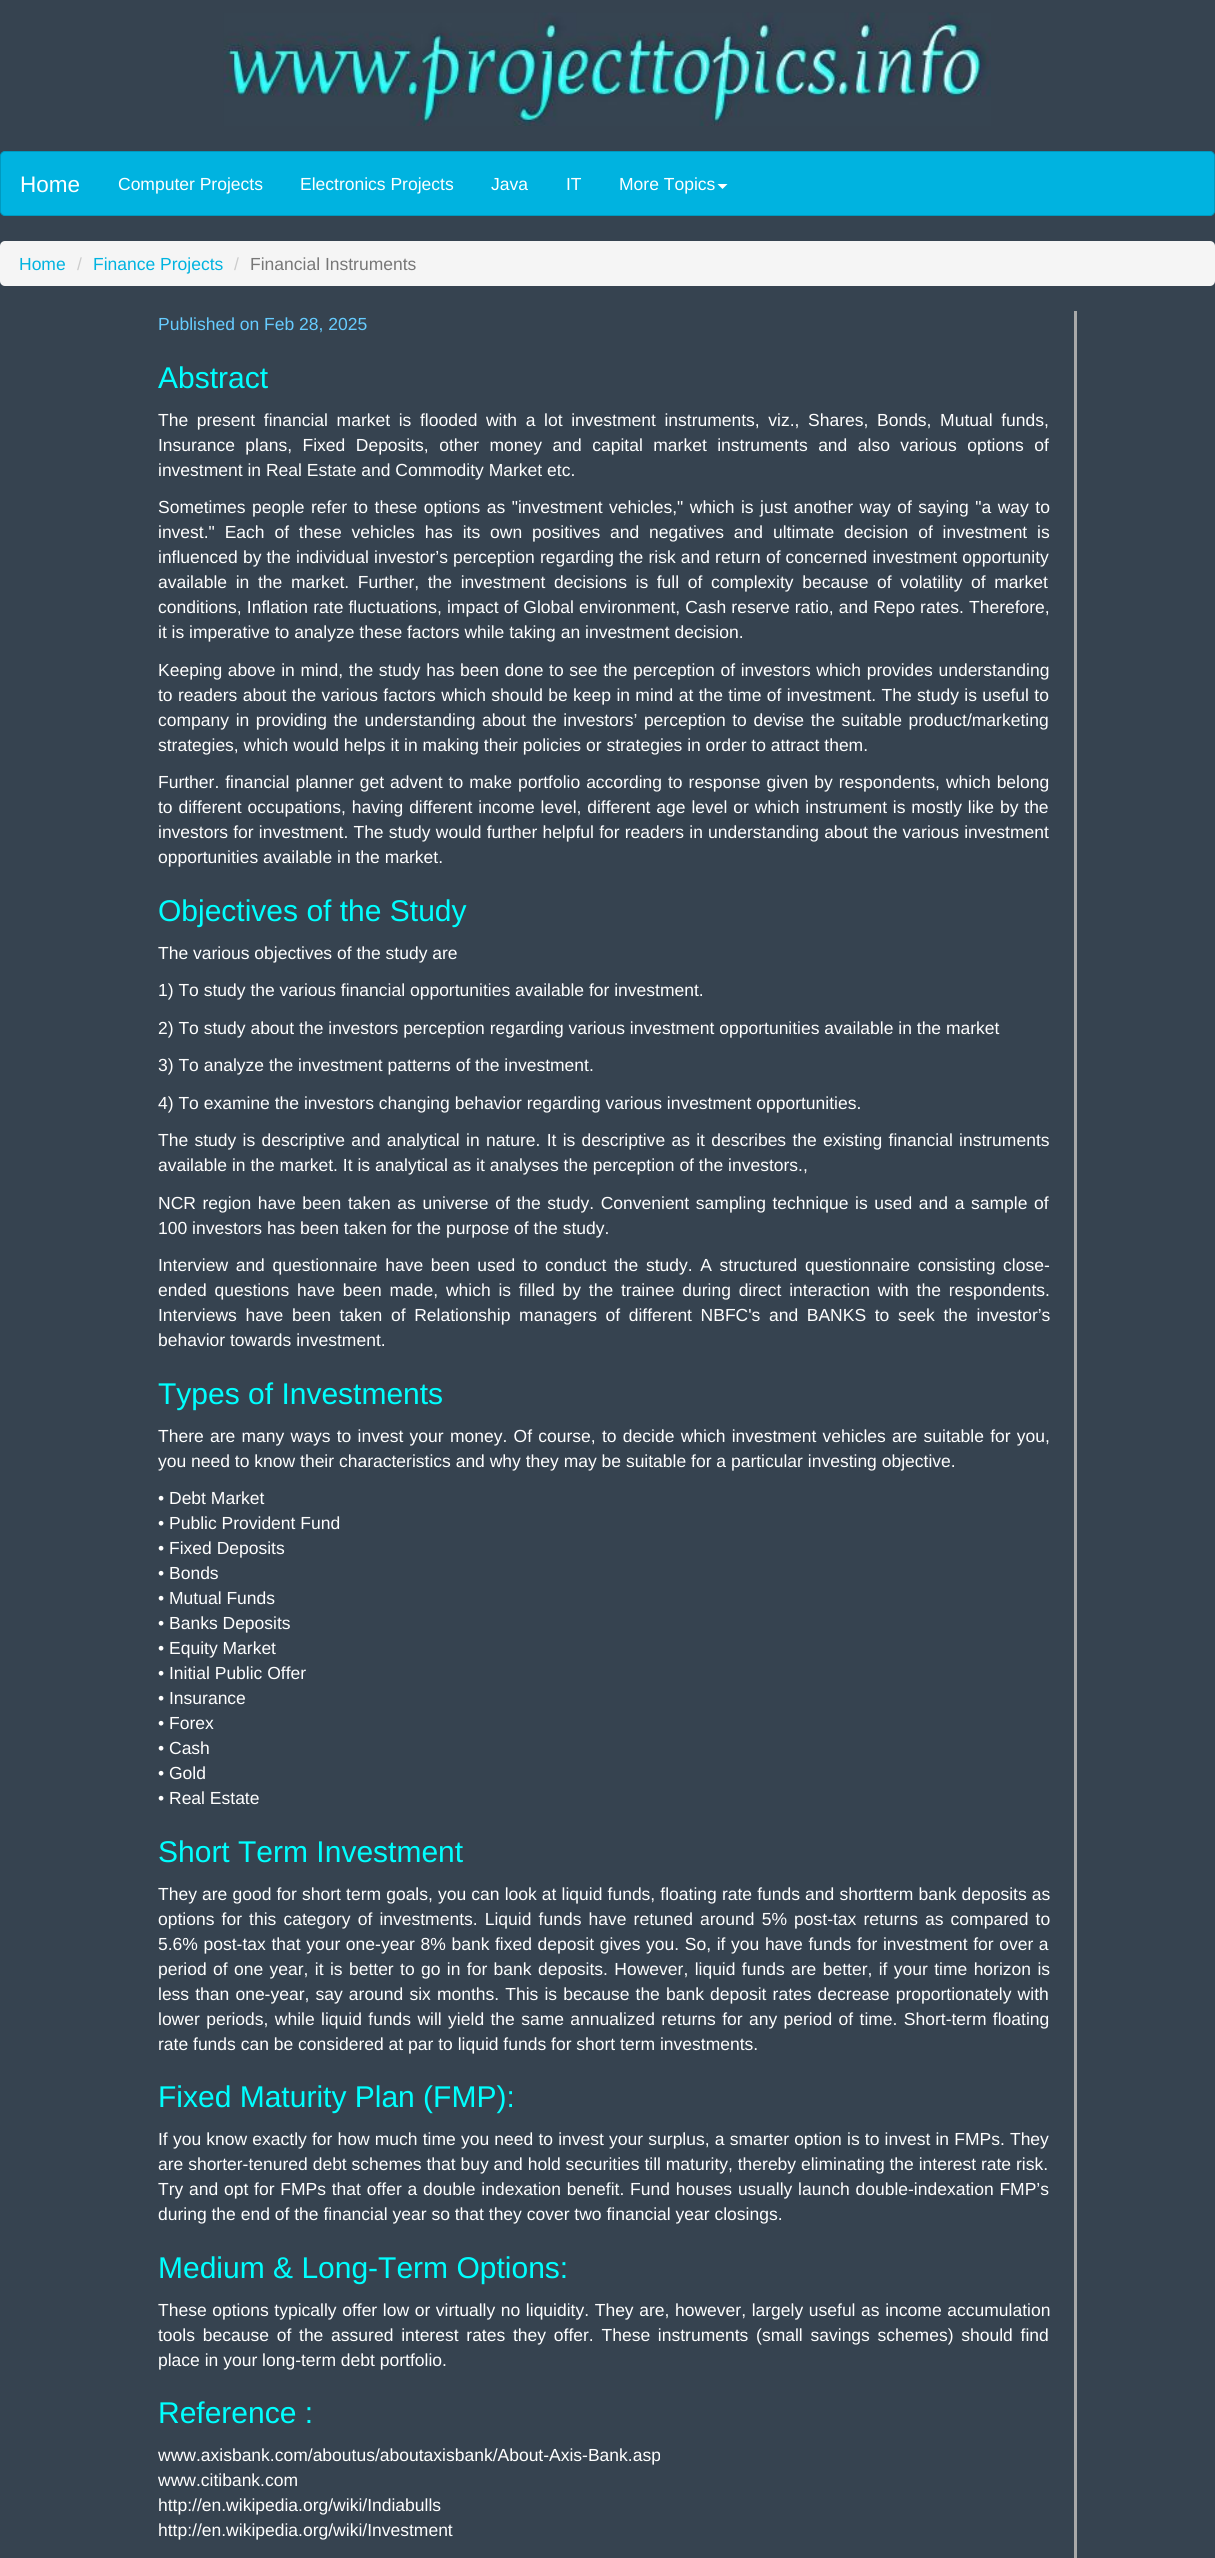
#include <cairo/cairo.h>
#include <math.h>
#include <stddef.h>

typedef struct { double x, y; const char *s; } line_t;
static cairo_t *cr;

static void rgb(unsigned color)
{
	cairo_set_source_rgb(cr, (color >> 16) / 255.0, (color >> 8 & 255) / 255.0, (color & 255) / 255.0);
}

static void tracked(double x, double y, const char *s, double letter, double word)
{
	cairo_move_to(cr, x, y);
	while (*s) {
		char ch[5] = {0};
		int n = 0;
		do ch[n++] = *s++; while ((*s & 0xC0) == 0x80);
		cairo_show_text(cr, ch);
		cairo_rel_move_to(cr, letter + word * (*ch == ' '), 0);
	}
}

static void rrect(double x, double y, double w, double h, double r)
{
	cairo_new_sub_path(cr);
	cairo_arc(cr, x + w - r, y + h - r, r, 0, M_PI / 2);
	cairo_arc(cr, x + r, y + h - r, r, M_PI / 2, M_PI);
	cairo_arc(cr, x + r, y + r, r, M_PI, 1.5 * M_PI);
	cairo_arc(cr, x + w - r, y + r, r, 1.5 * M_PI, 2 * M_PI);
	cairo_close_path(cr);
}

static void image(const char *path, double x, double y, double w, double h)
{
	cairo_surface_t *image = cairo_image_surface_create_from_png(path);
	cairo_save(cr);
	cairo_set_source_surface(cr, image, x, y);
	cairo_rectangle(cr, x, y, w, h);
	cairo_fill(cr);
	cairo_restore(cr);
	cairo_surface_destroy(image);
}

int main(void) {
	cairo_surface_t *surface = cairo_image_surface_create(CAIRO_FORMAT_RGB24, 1215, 2558);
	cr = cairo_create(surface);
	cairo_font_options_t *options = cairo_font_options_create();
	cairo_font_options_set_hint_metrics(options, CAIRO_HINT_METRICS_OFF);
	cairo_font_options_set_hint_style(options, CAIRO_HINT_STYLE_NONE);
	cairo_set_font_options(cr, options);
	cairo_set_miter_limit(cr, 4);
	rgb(0x364350);
	cairo_paint(cr);
	image("img/1.png", 223, 12, 768, 114);
	rgb(0x00b3e0);
	rrect(0.5, 151.5, 1214, 64, 4.5);
	cairo_fill_preserve(cr);
	rgb(0x0099bf);
	cairo_set_line_width(cr, 1);
	cairo_stroke(cr);
	rgb(0xffffff);
	cairo_new_path(cr);
	cairo_move_to(cr, 717.5, 184);
	cairo_line_to(cr, 727.5, 184);
	cairo_line_to(cr, 722.5, 189);
	cairo_close_path(cr);
	cairo_fill(cr);
	rgb(0xf5f5f5);
	rrect(0, 241, 1215, 45, 5);
	cairo_fill(cr);
	rgb(0xa9a9a9);
	cairo_rectangle(cr, 1074, 311, 3, 2247);
	cairo_fill(cr);
	cairo_select_font_face(cr, "Liberation Sans", CAIRO_FONT_SLANT_NORMAL, CAIRO_FONT_WEIGHT_NORMAL);
	cairo_set_font_size(cr, 22.5);
	rgb(0xffffff);
	cairo_move_to(cr, 20, 192);
	cairo_show_text(cr, "Home");
	cairo_set_font_size(cr, 17.5);
	{
		static const line_t items[] = {
			{118, 190, "Computer Projects"},
			{300, 190, "Electronics Projects"},
			{491, 190, "Java"},
			{566, 190, "IT"},
			{619, 190, "More Topics"},
		};
		for (size_t i = 0; i < sizeof items / sizeof *items; i++) {
			cairo_move_to(cr, items[i].x, items[i].y);
			cairo_show_text(cr, items[i].s);
		}
	}
	rgb(0x00b3e0);
	cairo_move_to(cr, 19, 270);
	cairo_show_text(cr, "Home");
	rgb(0xcccccc);
	cairo_move_to(cr, 77, 270);
	cairo_show_text(cr, "/");
	rgb(0x00b3e0);
	cairo_move_to(cr, 93, 270);
	cairo_show_text(cr, "Finance Projects");
	rgb(0xcccccc);
	cairo_move_to(cr, 234, 270);
	cairo_show_text(cr, "/");
	rgb(0x777777);
	cairo_move_to(cr, 250, 270);
	cairo_show_text(cr, "Financial Instruments");
	rgb(0x66ccff);
	cairo_move_to(cr, 158, 330);
	cairo_show_text(cr, "Published on Feb 28, 2025");
	cairo_set_font_size(cr, 30);
	rgb(0x00ffff);
	cairo_move_to(cr, 158, 388);
	cairo_show_text(cr, "Abstract");
	cairo_set_font_size(cr, 17.5);
	rgb(0xffffff);
	tracked(158, 426, "The present financial market is flooded with a lot investment instruments, viz., Shares, Bonds, Mutual funds,", 0, 3.75);
	tracked(158, 451, "Insurance plans, Fixed Deposits, other money and capital market instruments and also various options of", 0, 5.6);
	cairo_move_to(cr, 158, 476);
	cairo_show_text(cr, "investment in Real Estate and Commodity Market etc.");
	tracked(158, 513, "Sometimes people refer to these options as \"investment vehicles,\" which is just another way of saying \"a way to", 0, 1.6);
	tracked(158, 538, "invest.\" Each of these vehicles has its own positives and negatives and ultimate decision of investment is", 0, 5);
	tracked(158, 563, "influenced by the individual investor’s perception regarding the risk and return of concerned investment opportunity", 0, 0.25);
	tracked(158, 588, "available in the market. Further, the investment decisions is full of complexity because of volatility of market", 0, 3.75);
	tracked(158, 613, "conditions, Inflation rate fluctuations, impact of Global environment, Cash reserve ratio, and Repo rates. Therefore,", 0, 0.25);
	cairo_move_to(cr, 158, 638);
	cairo_show_text(cr, "it is imperative to analyze these factors while taking an investment decision.");
	tracked(158, 676, "Keeping above in mind, the study has been done to see the perception of investors which provides understanding", 0, 0.75);
	tracked(158, 701, "to readers about the various factors which should be keep in mind at the time of investment. The study is useful to", 0, 0.5);
	tracked(158, 726, "company in providing the understanding about the investors’ perception to devise the suitable product/marketing", 0, 1.75);
	cairo_move_to(cr, 158, 751);
	cairo_show_text(cr, "strategies, which would helps it in making their policies or strategies in order to attract them.");
	tracked(158, 788, "Further. financial planner get advent to make portfolio according to response given by respondents, which belong", 0, 1.1);
	tracked(158, 813, "to different occupations, having different income level, different age level or which instrument is mostly like by the", 0, 1);
	tracked(158, 838, "investors for investment. The study would further helpful for readers in understanding about the various investment", 0, 0.3);
	cairo_move_to(cr, 158, 863);
	cairo_show_text(cr, "opportunities available in the market.");
	cairo_set_font_size(cr, 30);
	rgb(0x00ffff);
	cairo_move_to(cr, 158, 921);
	cairo_show_text(cr, "Objectives of the Study");
	cairo_set_font_size(cr, 17.5);
	rgb(0xffffff);
	{
		static const line_t items[] = {
			{158, 959, "The various objectives of the study are"},
			{158, 996, "1) To study the various financial opportunities available for investment."},
			{158, 1034, "2) To study about the investors perception regarding various investment opportunities available in the market"},
			{158, 1071, "3) To analyze the investment patterns of the investment."},
			{158, 1109, "4) To examine the investors changing behavior regarding various investment opportunities."},
		};
		for (size_t i = 0; i < sizeof items / sizeof *items; i++) {
			cairo_move_to(cr, items[i].x, items[i].y);
			cairo_show_text(cr, items[i].s);
		}
	}
	tracked(158, 1146, "The study is descriptive and analytical in nature. It is descriptive as it describes the existing financial instruments", 0, 1.4);
	cairo_move_to(cr, 158, 1171);
	cairo_show_text(cr, "available in the market. It is analytical as it analyses the perception of the investors.,");
	tracked(158, 1209, "NCR region have been taken as universe of the study. Convenient sampling technique is used and a sample of", 0, 1.75);
	cairo_move_to(cr, 158, 1234);
	cairo_show_text(cr, "100 investors has been taken for the purpose of the study.");
	tracked(158, 1271, "Interview and questionnaire have been used to conduct the study. A structured questionnaire consisting close-", 0, 2.75);
	tracked(158, 1296, "ended questions have been made, which is filled by the trainee during direct interaction with the respondents.", 0, 2.9);
	tracked(158, 1321, "Interviews have been taken of Relationship managers of different NBFC's and BANKS to seek the investor’s", 0, 3.75);
	cairo_move_to(cr, 158, 1346);
	cairo_show_text(cr, "behavior towards investment.");
	cairo_set_font_size(cr, 30);
	rgb(0x00ffff);
	cairo_move_to(cr, 158, 1404);
	cairo_show_text(cr, "Types of Investments");
	cairo_set_font_size(cr, 17.5);
	rgb(0xffffff);
	tracked(158, 1442, "There are many ways to invest your money. Of course, to decide which investment vehicles are suitable for you,", 0, 1.4);
	{
		static const line_t items[] = {
			{158, 1467, "you need to know their characteristics and why they may be suitable for a particular investing objective."},
			{158, 1504, "• Debt Market"},
			{158, 1529, "• Public Provident Fund"},
			{158, 1554, "• Fixed Deposits"},
			{158, 1579, "• Bonds"},
			{158, 1604, "• Mutual Funds"},
			{158, 1629, "• Banks Deposits"},
			{158, 1654, "• Equity Market"},
			{158, 1679, "• Initial Public Offer"},
			{158, 1704, "• Insurance"},
			{158, 1729, "• Forex"},
			{158, 1754, "• Cash"},
			{158, 1779, "• Gold"},
			{158, 1804, "• Real Estate"},
		};
		for (size_t i = 0; i < sizeof items / sizeof *items; i++) {
			cairo_move_to(cr, items[i].x, items[i].y);
			cairo_show_text(cr, items[i].s);
		}
	}
	cairo_set_font_size(cr, 30);
	rgb(0x00ffff);
	cairo_move_to(cr, 158, 1862);
	cairo_show_text(cr, "Short Term Investment");
	cairo_set_font_size(cr, 17.5);
	rgb(0xffffff);
	tracked(158, 1900, "They are good for short term goals, you can look at liquid funds, floating rate funds and shortterm bank deposits as", 0, 0.25);
	tracked(158, 1925, "options for this category of investments. Liquid funds have retuned around 5% post-tax returns as compared to", 0, 2.25);
	tracked(158, 1950, "5.6% post-tax that your one-year 8% bank fixed deposit gives you. So, if you have funds for investment for over a", 0, 0.75);
	tracked(158, 1975, "period of one year, it is better to go in for bank deposits. However, liquid funds are better, if your time horizon is", 0, 1.5);
	tracked(158, 2000, "less than one-year, say around six months. This is because the bank deposit rates decrease proportionately with", 0, 1.25);
	tracked(158, 2025, "lower periods, while liquid funds will yield the same annualized returns for any period of time. Short-term floating", 0, 1.5);
	cairo_move_to(cr, 158, 2050);
	cairo_show_text(cr, "rate funds can be considered at par to liquid funds for short term investments.");
	cairo_set_font_size(cr, 30);
	rgb(0x00ffff);
	cairo_move_to(cr, 158, 2107);
	cairo_show_text(cr, "Fixed Maturity Plan (FMP):");
	cairo_set_font_size(cr, 17.5);
	rgb(0xffffff);
	tracked(158, 2145, "If you know exactly for how much time you need to invest your surplus, a smarter option is to invest in FMPs. They", 0, 0.3);
	cairo_move_to(cr, 158, 2170);
	cairo_show_text(cr, "are shorter-tenured debt schemes that buy and hold securities till maturity, thereby eliminating the interest rate risk.");
	tracked(158, 2195, "Try and opt for FMPs that offer a double indexation benefit. Fund houses usually launch double-indexation FMP’s", 0, 0.9);
	cairo_move_to(cr, 158, 2220);
	cairo_show_text(cr, "during the end of the financial year so that they cover two financial year closings.");
	cairo_set_font_size(cr, 30);
	rgb(0x00ffff);
	cairo_move_to(cr, 158, 2278);
	cairo_show_text(cr, "Medium & Long-Term Options:");
	cairo_set_font_size(cr, 17.5);
	rgb(0xffffff);
	tracked(158, 2316, "These options typically offer low or virtually no liquidity. They are, however, largely useful as income accumulation", 0, 0.75);
	tracked(158, 2341, "tools because of the assured interest rates they offer. These instruments (small savings schemes) should find", 0, 2.9);
	cairo_move_to(cr, 158, 2366);
	cairo_show_text(cr, "place in your long-term debt portfolio.");
	cairo_set_font_size(cr, 30);
	rgb(0x00ffff);
	cairo_move_to(cr, 158, 2423);
	cairo_show_text(cr, "Reference :");
	cairo_set_font_size(cr, 17.5);
	rgb(0xffffff);
	{
		static const line_t items[] = {
			{158, 2461, "www.axisbank.com/aboutus/aboutaxisbank/About-Axis-Bank.asp"},
			{158, 2486, "www.citibank.com"},
			{158, 2511, "http://en.wikipedia.org/wiki/Indiabulls"},
			{158, 2536, "http://en.wikipedia.org/wiki/Investment"},
		};
		for (size_t i = 0; i < sizeof items / sizeof *items; i++) {
			cairo_move_to(cr, items[i].x, items[i].y);
			cairo_show_text(cr, items[i].s);
		}
	}
	cairo_surface_write_to_png(surface, "page.png");
	cairo_font_options_destroy(options);
	cairo_destroy(cr);
	cairo_surface_destroy(surface);
	return 0;
}
